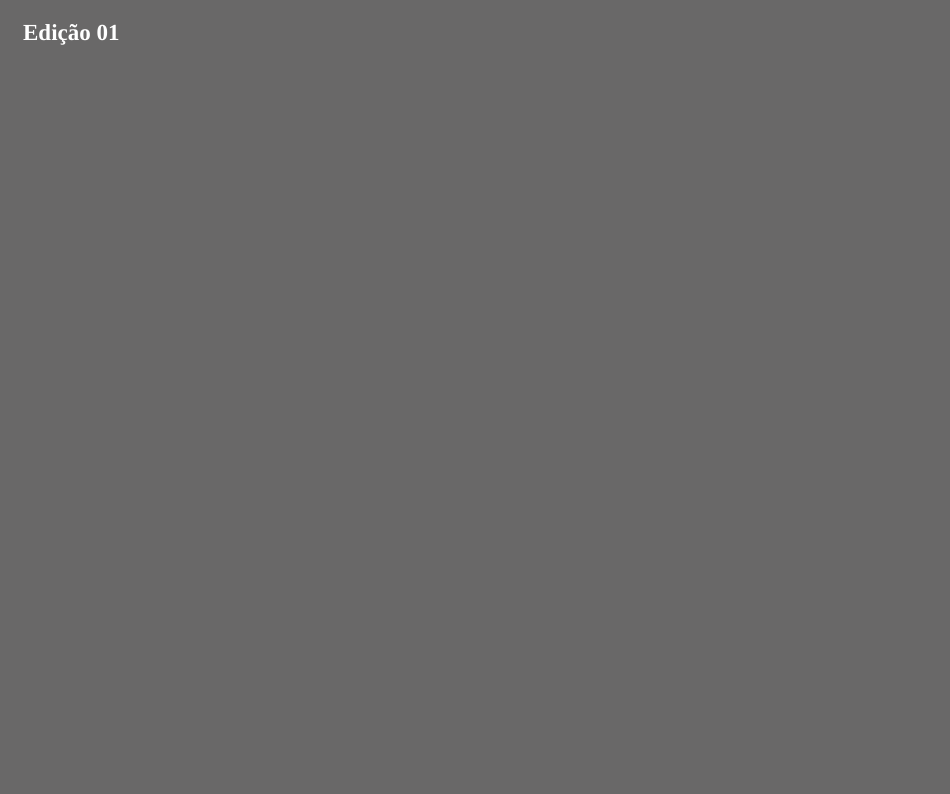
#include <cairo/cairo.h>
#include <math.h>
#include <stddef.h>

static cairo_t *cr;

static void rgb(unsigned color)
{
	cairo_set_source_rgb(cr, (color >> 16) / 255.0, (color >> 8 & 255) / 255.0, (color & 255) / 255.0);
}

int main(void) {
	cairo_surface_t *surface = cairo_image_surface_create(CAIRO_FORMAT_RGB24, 950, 794);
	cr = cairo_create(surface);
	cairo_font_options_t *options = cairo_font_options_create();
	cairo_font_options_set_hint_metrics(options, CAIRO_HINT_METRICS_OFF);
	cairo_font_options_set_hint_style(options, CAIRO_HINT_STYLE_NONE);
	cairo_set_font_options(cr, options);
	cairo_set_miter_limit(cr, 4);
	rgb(0x696868);
	cairo_paint(cr);
	cairo_select_font_face(cr, "Liberation Serif", CAIRO_FONT_SLANT_NORMAL, CAIRO_FONT_WEIGHT_BOLD);
	cairo_set_font_size(cr, 23);
	rgb(0xffffff);
	cairo_move_to(cr, 23, 40);
	cairo_show_text(cr, "Edição 01");
	cairo_surface_write_to_png(surface, "page.png");
	cairo_font_options_destroy(options);
	cairo_destroy(cr);
	cairo_surface_destroy(surface);
	return 0;
}
